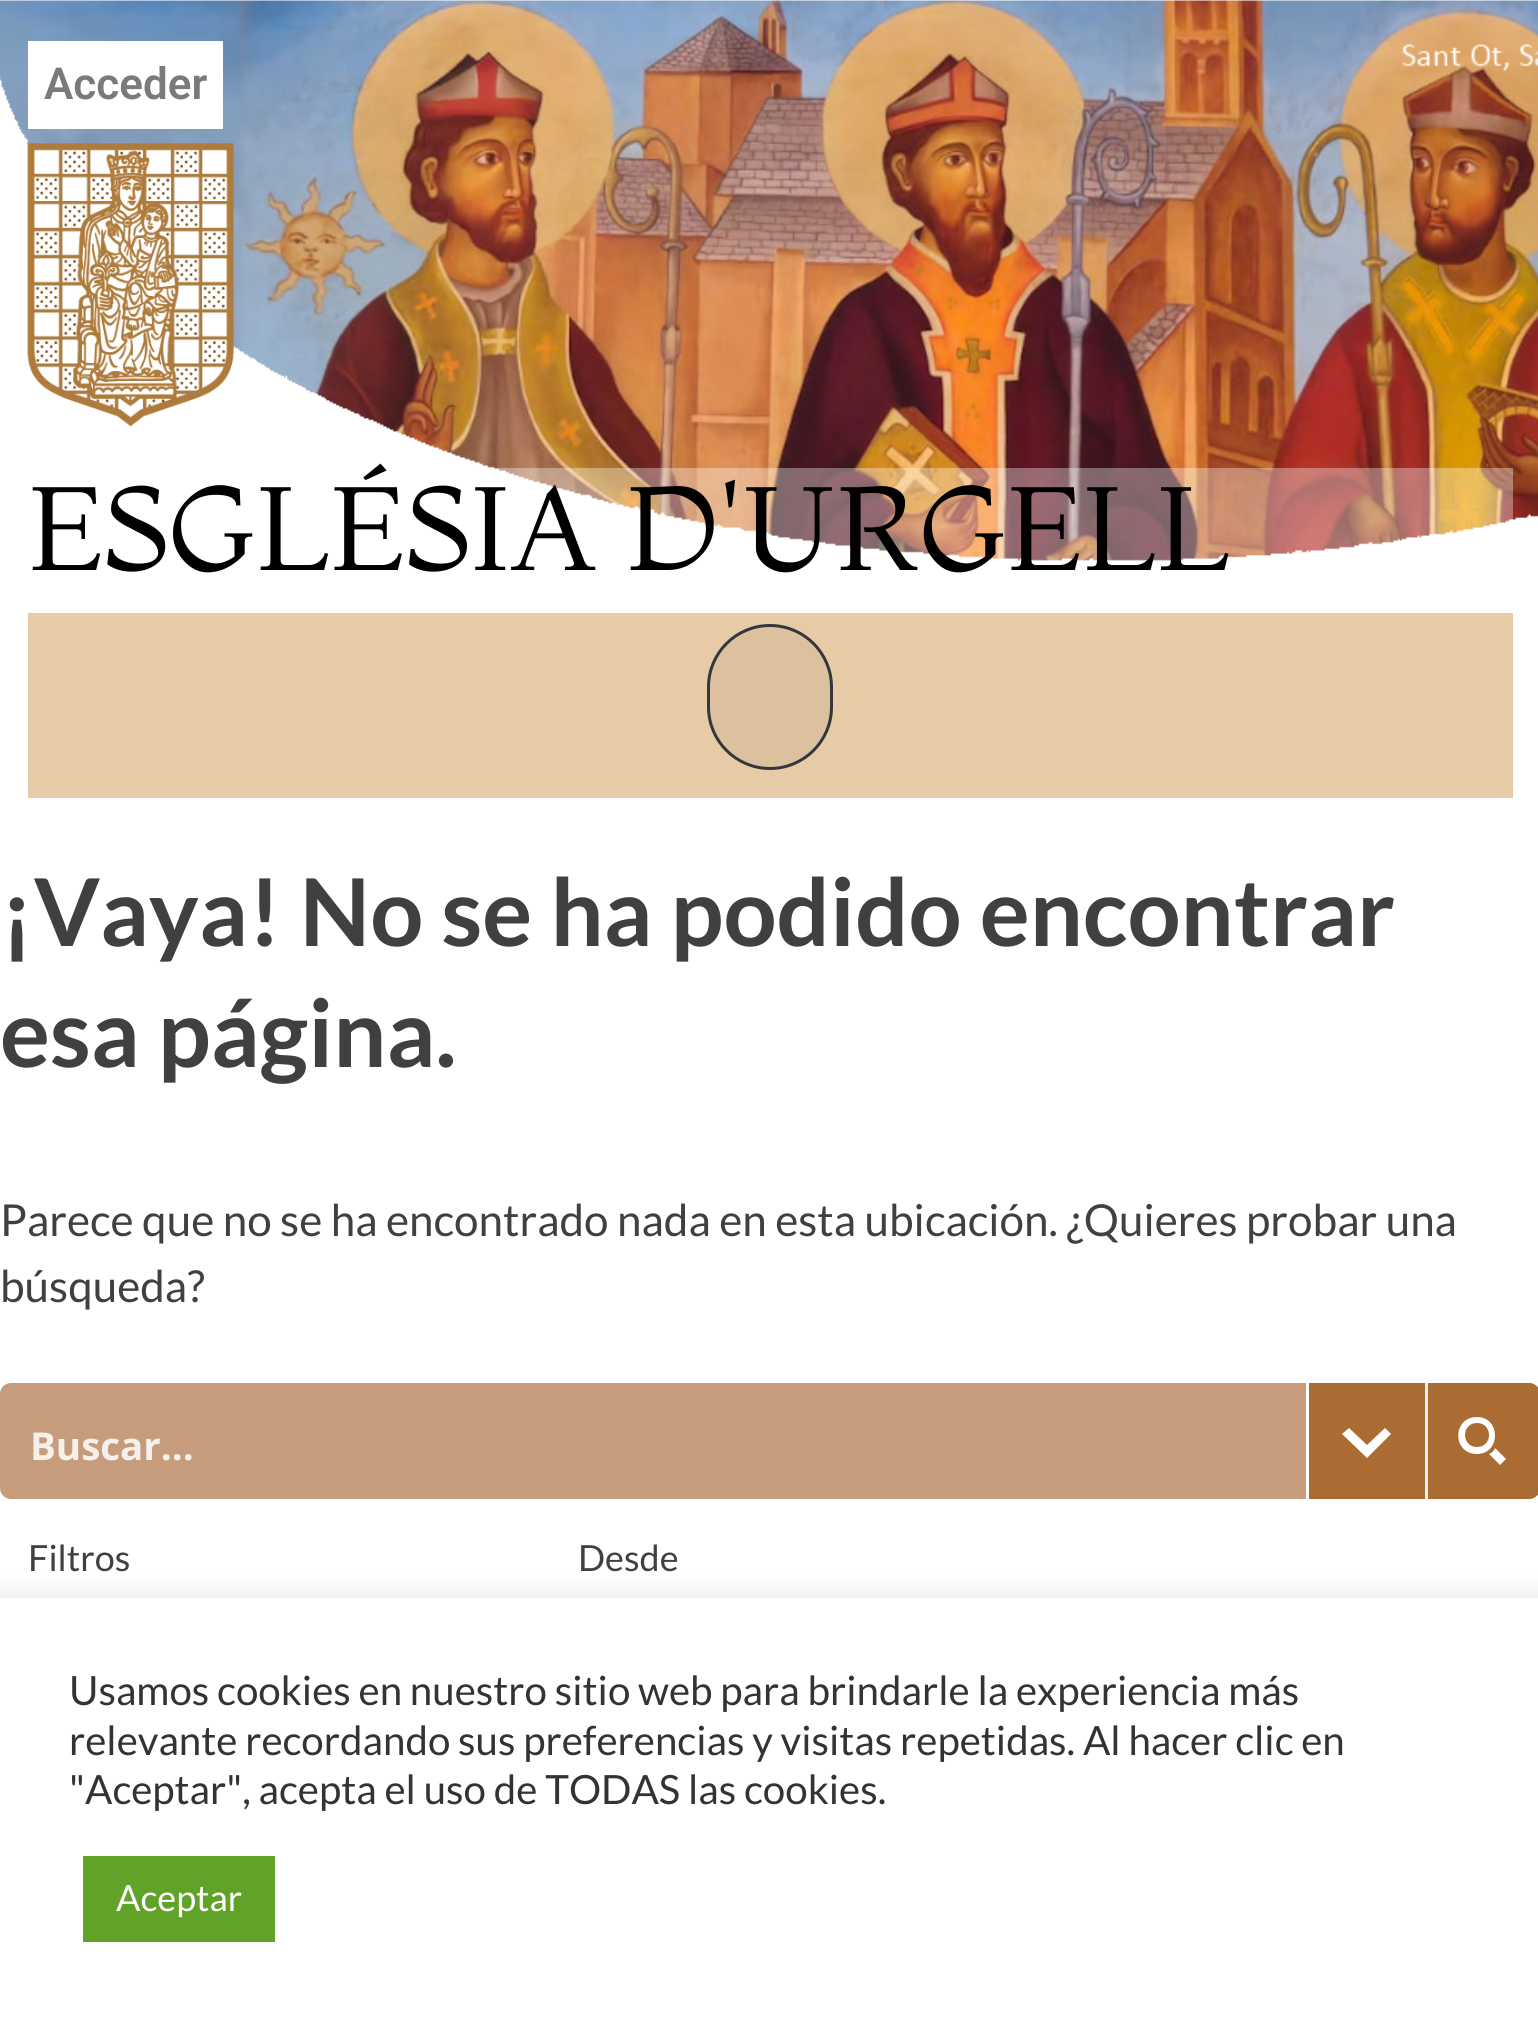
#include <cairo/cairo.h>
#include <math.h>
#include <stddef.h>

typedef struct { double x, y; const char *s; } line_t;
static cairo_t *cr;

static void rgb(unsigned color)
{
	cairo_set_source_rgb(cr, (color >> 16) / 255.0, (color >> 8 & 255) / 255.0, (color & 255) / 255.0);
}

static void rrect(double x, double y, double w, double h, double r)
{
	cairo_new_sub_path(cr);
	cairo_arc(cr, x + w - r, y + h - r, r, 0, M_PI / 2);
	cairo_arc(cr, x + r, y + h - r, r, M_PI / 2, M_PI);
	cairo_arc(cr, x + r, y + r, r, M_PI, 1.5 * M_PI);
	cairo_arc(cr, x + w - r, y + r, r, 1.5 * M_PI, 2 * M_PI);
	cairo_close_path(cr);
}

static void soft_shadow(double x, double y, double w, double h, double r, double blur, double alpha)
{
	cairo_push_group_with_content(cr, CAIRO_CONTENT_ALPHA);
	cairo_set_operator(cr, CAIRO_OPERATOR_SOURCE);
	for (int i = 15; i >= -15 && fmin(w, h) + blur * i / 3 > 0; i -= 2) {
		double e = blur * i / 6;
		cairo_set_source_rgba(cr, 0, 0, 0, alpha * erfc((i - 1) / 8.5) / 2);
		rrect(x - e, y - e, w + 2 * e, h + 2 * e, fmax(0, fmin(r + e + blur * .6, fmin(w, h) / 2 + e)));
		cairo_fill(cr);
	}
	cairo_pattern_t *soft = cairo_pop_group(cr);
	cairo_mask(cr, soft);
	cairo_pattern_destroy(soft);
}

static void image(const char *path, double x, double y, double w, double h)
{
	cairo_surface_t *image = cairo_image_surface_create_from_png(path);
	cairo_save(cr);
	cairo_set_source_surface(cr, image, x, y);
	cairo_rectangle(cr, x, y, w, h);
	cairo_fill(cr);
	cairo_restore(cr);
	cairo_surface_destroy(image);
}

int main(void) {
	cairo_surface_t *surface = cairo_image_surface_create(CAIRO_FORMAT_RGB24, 1538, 2022);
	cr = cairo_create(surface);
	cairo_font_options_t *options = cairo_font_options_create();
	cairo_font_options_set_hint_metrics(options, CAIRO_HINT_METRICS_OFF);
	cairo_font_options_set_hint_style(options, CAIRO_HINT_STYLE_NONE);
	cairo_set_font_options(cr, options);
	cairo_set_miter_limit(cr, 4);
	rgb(0xffffff);
	cairo_paint(cr);
	image("img/1.png", 0, 0, 1538, 561);
	rgb(0xffffff);
	cairo_rectangle(cr, 28, 41, 195, 88);
	cairo_fill(cr);
	image("img/2.png", 27, 143, 207, 284);
	cairo_set_source_rgba(cr, 1, 1, 1, 0.35);
	cairo_rectangle(cr, 494, 468, 1019, 93);
	cairo_fill(cr);
	rgb(0xe6cba6);
	cairo_rectangle(cr, 28, 613, 1485, 185);
	cairo_fill(cr);
	rgb(0xdbc19e);
	rrect(708.5, 625.5, 123, 143, 61.5);
	cairo_fill_preserve(cr);
	rgb(0x33373d);
	cairo_set_line_width(cr, 3);
	cairo_stroke(cr);
	rgb(0xc69c7c);
	rrect(0, 1383, 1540, 116, 11);
	cairo_fill(cr);
	rgb(0xffffff);
	cairo_new_path(cr);
	cairo_move_to(cr, 1306, 1383);
	cairo_line_to(cr, 1422, 1383);
	cairo_line_to(cr, 1309, 1383);
	cairo_line_to(cr, 1309, 1499);
	cairo_line_to(cr, 1422, 1499);
	cairo_line_to(cr, 1306, 1499);
	cairo_close_path(cr);
	cairo_fill(cr);
	rgb(0xaa6c32);
	cairo_rectangle(cr, 1309, 1383, 116, 116);
	cairo_fill(cr);
	rgb(0xffffff);
	cairo_new_path(cr);
	cairo_move_to(cr, 1385, 1428);
	cairo_line_to(cr, 1391, 1434);
	cairo_line_to(cr, 1367, 1458);
	cairo_line_to(cr, 1342, 1434);
	cairo_line_to(cr, 1349, 1428);
	cairo_line_to(cr, 1367, 1445);
	cairo_close_path(cr);
	cairo_fill(cr);
	rgb(0xaa6c32);
	cairo_new_path(cr);
	cairo_move_to(cr, 1425, 1383);
	cairo_line_to(cr, 1529, 1383);
	cairo_curve_to(cr, 1535, 1383, 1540, 1388, 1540, 1394);
	cairo_line_to(cr, 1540, 1488);
	cairo_curve_to(cr, 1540, 1494, 1535, 1499, 1529, 1499);
	cairo_line_to(cr, 1425, 1499);
	cairo_close_path(cr);
	cairo_fill(cr);
	rgb(0xf1f1f1);
	cairo_rectangle(cr, 1425, 1383, 3, 116);
	cairo_fill(cr);
	rgb(0xffffff);
	cairo_new_path(cr);
	cairo_move_to(cr, 1477, 1454);
	cairo_curve_to(cr, 1452, 1454, 1452, 1417, 1477, 1417);
	cairo_curve_to(cr, 1501, 1417, 1501, 1454, 1477, 1454);
	cairo_close_path(cr);
	cairo_move_to(cr, 1477, 1423);
	cairo_curve_to(cr, 1461, 1423, 1461, 1447, 1477, 1447);
	cairo_curve_to(cr, 1493, 1447, 1493, 1423, 1477, 1423);
	cairo_close_path(cr);
	cairo_move_to(cr, 1495, 1448);
	cairo_curve_to(cr, 1494, 1451, 1492, 1453, 1489, 1454);
	cairo_line_to(cr, 1500, 1465);
	cairo_line_to(cr, 1506, 1459);
	cairo_close_path(cr);
	cairo_fill(cr);
	rgb(0xacabab);
	soft_shadow(0, 1595, 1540, 426, 0, 14, 0.3);
	rgb(0xffffff);
	cairo_rectangle(cr, 0, 1598, 1538, 424);
	cairo_fill(cr);
	rgb(0x61a229);
	cairo_rectangle(cr, 83, 1856, 192, 86);
	cairo_fill(cr);
	cairo_select_font_face(cr, "Roboto SemiBold", CAIRO_FONT_SLANT_NORMAL, CAIRO_FONT_WEIGHT_NORMAL);
	cairo_set_font_size(cr, 44);
	rgb(0x7a7a7a);
	cairo_move_to(cr, 44, 99);
	cairo_show_text(cr, "Acceder");
	cairo_select_font_face(cr, "Montaga", CAIRO_FONT_SLANT_NORMAL, CAIRO_FONT_WEIGHT_NORMAL);
	cairo_set_font_size(cr, 118.25);
	rgb(0x000000);
	cairo_move_to(cr, 28, 570);
	cairo_show_text(cr, "ESGLÉSIA D'URGELL");
	cairo_select_font_face(cr, "Lato", CAIRO_FONT_SLANT_NORMAL, CAIRO_FONT_WEIGHT_BOLD);
	cairo_set_font_size(cr, 93.5);
	rgb(0x404040);
	cairo_move_to(cr, 0, 946);
	cairo_show_text(cr, "¡Vaya! No se ha podido encontrar");
	cairo_move_to(cr, 0, 1067);
	cairo_show_text(cr, "esa página.");
	cairo_select_font_face(cr, "Lato", CAIRO_FONT_SLANT_NORMAL, CAIRO_FONT_WEIGHT_NORMAL);
	cairo_set_font_size(cr, 44);
	cairo_move_to(cr, 0, 1236);
	cairo_show_text(cr, "Parece que no se ha encontrado nada en esta ubicación. ¿Quieres probar una");
	cairo_move_to(cr, 0, 1302);
	cairo_show_text(cr, "búsqueda?");
	cairo_select_font_face(cr, "Open Sans", CAIRO_FONT_SLANT_NORMAL, CAIRO_FONT_WEIGHT_BOLD);
	cairo_set_font_size(cr, 38.5);
	rgb(0xf6f0eb);
	cairo_move_to(cr, 30, 1460);
	cairo_show_text(cr, "Buscar...");
	cairo_select_font_face(cr, "Lato", CAIRO_FONT_SLANT_NORMAL, CAIRO_FONT_WEIGHT_NORMAL);
	cairo_set_font_size(cr, 36);
	rgb(0x404040);
	cairo_move_to(cr, 28, 1571);
	cairo_show_text(cr, "Filtros");
	cairo_move_to(cr, 578, 1571);
	cairo_show_text(cr, "Desde");
	cairo_set_font_size(cr, 40.3);
	rgb(0x333333);
	{
		static const line_t items[] = {
			{69, 1705, "Usamos cookies en nuestro sitio web para brindarle la experiencia más"},
			{69, 1755, "relevante recordando sus preferencias y visitas repetidas. Al hacer clic en"},
			{69, 1804, "\"Aceptar\", acepta el uso de TODAS las cookies."},
		};
		for (size_t i = 0; i < sizeof items / sizeof *items; i++) {
			cairo_move_to(cr, items[i].x, items[i].y);
			cairo_show_text(cr, items[i].s);
		}
	}
	cairo_set_font_size(cr, 36);
	rgb(0xffffff);
	cairo_move_to(cr, 116, 1911);
	cairo_show_text(cr, "Aceptar");
	cairo_surface_write_to_png(surface, "page.png");
	cairo_font_options_destroy(options);
	cairo_destroy(cr);
	cairo_surface_destroy(surface);
	return 0;
}
